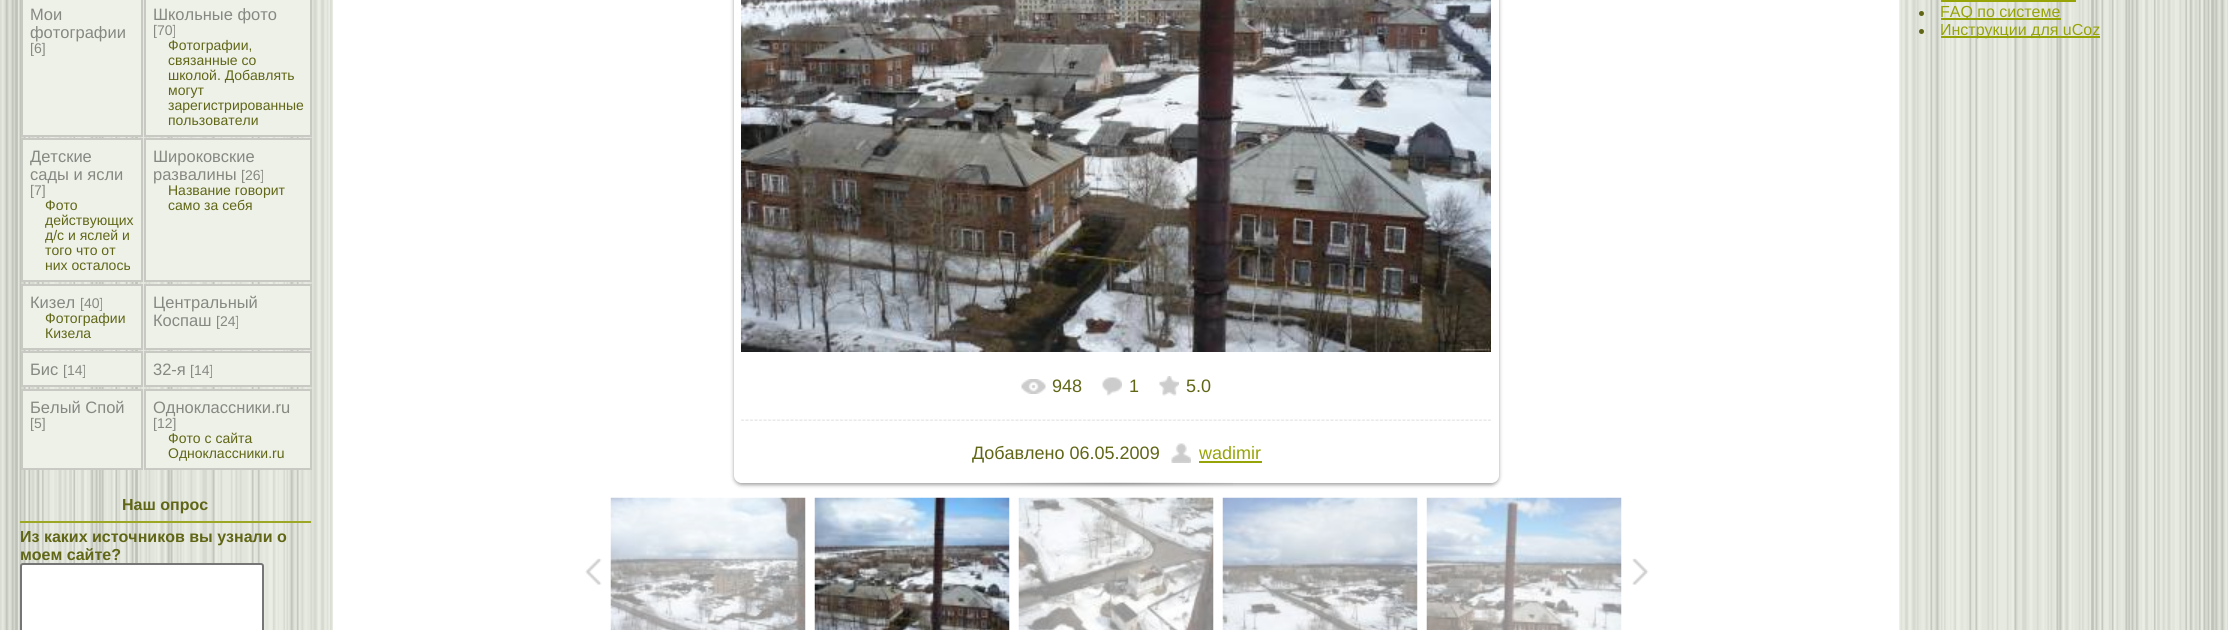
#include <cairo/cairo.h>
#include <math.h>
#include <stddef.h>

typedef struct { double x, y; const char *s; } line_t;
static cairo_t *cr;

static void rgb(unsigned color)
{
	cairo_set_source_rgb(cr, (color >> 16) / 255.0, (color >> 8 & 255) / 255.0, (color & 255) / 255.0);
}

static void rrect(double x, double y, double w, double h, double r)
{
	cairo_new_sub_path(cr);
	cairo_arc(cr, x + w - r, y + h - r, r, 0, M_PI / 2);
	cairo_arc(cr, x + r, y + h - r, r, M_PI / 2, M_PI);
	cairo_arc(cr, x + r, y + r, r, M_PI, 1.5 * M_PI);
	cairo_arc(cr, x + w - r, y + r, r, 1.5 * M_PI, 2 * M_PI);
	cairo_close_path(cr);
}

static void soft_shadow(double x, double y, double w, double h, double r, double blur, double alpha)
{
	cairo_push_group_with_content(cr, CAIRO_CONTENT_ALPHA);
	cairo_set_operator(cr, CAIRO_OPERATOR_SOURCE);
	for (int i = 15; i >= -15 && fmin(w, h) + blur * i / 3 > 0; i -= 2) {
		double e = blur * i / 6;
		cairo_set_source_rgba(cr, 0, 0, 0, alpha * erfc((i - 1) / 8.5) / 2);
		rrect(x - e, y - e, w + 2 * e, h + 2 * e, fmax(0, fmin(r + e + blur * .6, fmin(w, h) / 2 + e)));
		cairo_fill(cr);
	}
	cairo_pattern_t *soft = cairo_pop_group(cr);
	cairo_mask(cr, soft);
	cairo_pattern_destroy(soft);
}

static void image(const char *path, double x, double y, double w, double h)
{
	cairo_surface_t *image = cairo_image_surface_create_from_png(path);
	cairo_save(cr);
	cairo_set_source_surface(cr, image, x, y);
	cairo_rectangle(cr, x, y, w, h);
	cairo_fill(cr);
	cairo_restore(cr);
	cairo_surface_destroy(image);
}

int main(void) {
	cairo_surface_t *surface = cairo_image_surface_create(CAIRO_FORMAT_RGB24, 2228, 630);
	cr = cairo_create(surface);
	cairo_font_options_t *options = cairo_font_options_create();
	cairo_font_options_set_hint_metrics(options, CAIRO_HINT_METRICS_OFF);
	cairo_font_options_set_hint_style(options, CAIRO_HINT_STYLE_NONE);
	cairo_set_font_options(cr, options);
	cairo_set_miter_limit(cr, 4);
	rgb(0xffffff);
	cairo_paint(cr);
	rgb(0xe7eae1);
	cairo_rectangle(cr, 332, 0, 1, 630);
	cairo_fill(cr);
	image("img/1.png", 0, 0, 332, 630);
	rgb(0xeef1e8);
	cairo_rectangle(cr, 22, -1, 120, 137);
	cairo_fill_preserve(cr);
	rgb(0xc8c9c2);
	cairo_stroke(cr);
	rgb(0xeef1e8);
	cairo_rectangle(cr, 145, -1, 166, 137);
	cairo_fill_preserve(cr);
	rgb(0xc8c9c2);
	cairo_stroke(cr);
	rgb(0xeef1e8);
	cairo_rectangle(cr, 22, 139, 120, 142);
	cairo_fill_preserve(cr);
	rgb(0xc8c9c2);
	cairo_stroke(cr);
	rgb(0xeef1e8);
	cairo_rectangle(cr, 145, 139, 166, 142);
	cairo_fill_preserve(cr);
	rgb(0xc8c9c2);
	cairo_stroke(cr);
	rgb(0xeef1e8);
	cairo_rectangle(cr, 22, 285, 120, 64);
	cairo_fill_preserve(cr);
	rgb(0xc8c9c2);
	cairo_stroke(cr);
	rgb(0xeef1e8);
	cairo_rectangle(cr, 145, 285, 166, 64);
	cairo_fill_preserve(cr);
	rgb(0xc8c9c2);
	cairo_stroke(cr);
	rgb(0xeef1e8);
	cairo_rectangle(cr, 22, 352, 120, 34);
	cairo_fill_preserve(cr);
	rgb(0xc8c9c2);
	cairo_stroke(cr);
	rgb(0xeef1e8);
	cairo_rectangle(cr, 145, 352, 166, 34);
	cairo_fill_preserve(cr);
	rgb(0xc8c9c2);
	cairo_stroke(cr);
	rgb(0xeef1e8);
	cairo_rectangle(cr, 22, 390, 120, 79);
	cairo_fill_preserve(cr);
	rgb(0xc8c9c2);
	cairo_stroke(cr);
	rgb(0xeef1e8);
	cairo_rectangle(cr, 145, 390, 166, 79);
	cairo_fill_preserve(cr);
	rgb(0xc8c9c2);
	cairo_stroke(cr);
	rgb(0x9ca725);
	cairo_rectangle(cr, 20, 521, 291, 2);
	cairo_fill(cr);
	rgb(0xffffff);
	rrect(21, 564, 242, 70, 2);
	cairo_fill_preserve(cr);
	rgb(0x767676);
	cairo_stroke(cr);
	cairo_save(cr);
	cairo_set_fill_rule(cr, CAIRO_FILL_RULE_EVEN_ODD);
	cairo_new_path(cr);
	cairo_move_to(cr, 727, 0);
	cairo_line_to(cr, 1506, 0);
	cairo_line_to(cr, 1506, 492);
	cairo_line_to(cr, 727, 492);
	cairo_close_path(cr);
	cairo_move_to(cr, 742, -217);
	cairo_line_to(cr, 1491, -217);
	cairo_curve_to(cr, 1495.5, -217, 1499, -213.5, 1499, -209);
	cairo_line_to(cr, 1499, 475);
	cairo_curve_to(cr, 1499, 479.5, 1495.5, 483, 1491, 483);
	cairo_line_to(cr, 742, 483);
	cairo_curve_to(cr, 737.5, 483, 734, 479.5, 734, 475);
	cairo_line_to(cr, 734, -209);
	cairo_curve_to(cr, 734, -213.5, 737.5, -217, 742, -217);
	cairo_close_path(cr);
	cairo_clip(cr);
	rgb(0x000000);
	soft_shadow(734, -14, 765, 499, 8, 2, 0.37);
	cairo_restore(cr);
	image("img/2.png", 741, 0, 750, 352);
	image("img/3.png", 1021, 379, 25, 15);
	image("img/4.png", 1102, 377, 20, 19);
	image("img/5.png", 1159, 376, 20, 20);
	image("img/6.png", 741, 419, 750, 2);
	image("img/7.png", 1171, 443, 20, 20);
	rgb(0x97a408);
	cairo_rectangle(cr, 1199, 461, 63, 2);
	cairo_fill(cr);
	image("img/8.png", 1000, 482, 233, 5);
	image("img/9.png", 585, 558, 17, 27);
	image("img/10.png", 610, 497, 196, 133);
	image("img/11.png", 814, 497, 196, 133);
	image("img/12.png", 1018, 497, 196, 133);
	image("img/13.png", 1222, 497, 196, 133);
	image("img/14.png", 1426, 497, 196, 133);
	image("img/15.png", 1632, 558, 17, 27);
	image("img/16.png", 1899, 0, 329, 630);
	cairo_rectangle(cr, 1941, 0, 135, 2);
	cairo_fill(cr);
	rgb(0x606615);
	cairo_arc(cr, 1921.5, 13.5, 2.5, 0, 2 * M_PI);
	cairo_fill(cr);
	rgb(0x97a408);
	cairo_rectangle(cr, 1941, 18, 120, 2);
	cairo_fill(cr);
	rgb(0x606615);
	cairo_arc(cr, 1921.5, 31.5, 2.5, 0, 2 * M_PI);
	cairo_fill(cr);
	rgb(0x97a408);
	cairo_rectangle(cr, 1941, 36, 159, 2);
	cairo_fill(cr);
	cairo_select_font_face(cr, "Liberation Sans", CAIRO_FONT_SLANT_NORMAL, CAIRO_FONT_WEIGHT_NORMAL);
	cairo_set_font_size(cr, 16.5);
	rgb(0x868882);
	cairo_move_to(cr, 30, 20);
	cairo_show_text(cr, "Мои");
	cairo_move_to(cr, 30, 38);
	cairo_show_text(cr, "фотографии");
	cairo_set_font_size(cr, 14);
	cairo_move_to(cr, 30, 53);
	cairo_show_text(cr, "[6]");
	cairo_set_font_size(cr, 16.5);
	cairo_move_to(cr, 153, 20);
	cairo_show_text(cr, "Школьные фото");
	cairo_set_font_size(cr, 14);
	cairo_move_to(cr, 153, 35);
	cairo_show_text(cr, "[70]");
	rgb(0x606615);
	{
		static const line_t items[] = {
			{168, 50, "Фотографии,"},
			{168, 65, "связанные со"},
			{168, 80, "школой. Добавлять"},
			{168, 95, "могут"},
			{168, 110, "зарегистрированные"},
			{168, 125, "пользователи"},
		};
		for (size_t i = 0; i < sizeof items / sizeof *items; i++) {
			cairo_move_to(cr, items[i].x, items[i].y);
			cairo_show_text(cr, items[i].s);
		}
	}
	cairo_set_font_size(cr, 16.5);
	rgb(0x868882);
	cairo_move_to(cr, 30, 162);
	cairo_show_text(cr, "Детские");
	cairo_move_to(cr, 30, 180);
	cairo_show_text(cr, "сады и ясли");
	cairo_set_font_size(cr, 14);
	cairo_move_to(cr, 30, 195);
	cairo_show_text(cr, "[7]");
	rgb(0x606615);
	{
		static const line_t items[] = {
			{45, 210, "Фото"},
			{45, 225, "действующих"},
			{45, 240, "д/с и яслей и"},
			{45, 255, "того что от"},
			{45, 270, "них осталось"},
		};
		for (size_t i = 0; i < sizeof items / sizeof *items; i++) {
			cairo_move_to(cr, items[i].x, items[i].y);
			cairo_show_text(cr, items[i].s);
		}
	}
	cairo_set_font_size(cr, 16.5);
	rgb(0x868882);
	cairo_move_to(cr, 153, 162);
	cairo_show_text(cr, "Широковские");
	cairo_move_to(cr, 153, 180);
	cairo_show_text(cr, "развалины");
	cairo_set_font_size(cr, 14);
	cairo_move_to(cr, 241, 180);
	cairo_show_text(cr, "[26]");
	rgb(0x606615);
	cairo_move_to(cr, 168, 195);
	cairo_show_text(cr, "Название говорит");
	cairo_move_to(cr, 168, 210);
	cairo_show_text(cr, "само за себя");
	cairo_set_font_size(cr, 16.5);
	rgb(0x868882);
	cairo_move_to(cr, 30, 308);
	cairo_show_text(cr, "Кизел");
	cairo_set_font_size(cr, 14);
	cairo_move_to(cr, 80, 308);
	cairo_show_text(cr, "[40]");
	rgb(0x606615);
	cairo_move_to(cr, 45, 323);
	cairo_show_text(cr, "Фотографии");
	cairo_move_to(cr, 45, 338);
	cairo_show_text(cr, "Кизела");
	cairo_set_font_size(cr, 16.5);
	rgb(0x868882);
	cairo_move_to(cr, 153, 308);
	cairo_show_text(cr, "Центральный");
	cairo_move_to(cr, 153, 326);
	cairo_show_text(cr, "Коспаш");
	cairo_set_font_size(cr, 14);
	cairo_move_to(cr, 216, 326);
	cairo_show_text(cr, "[24]");
	cairo_set_font_size(cr, 16.5);
	cairo_move_to(cr, 30, 375);
	cairo_show_text(cr, "Бис");
	cairo_set_font_size(cr, 14);
	cairo_move_to(cr, 63, 375);
	cairo_show_text(cr, "[14]");
	cairo_set_font_size(cr, 16.5);
	cairo_move_to(cr, 153, 375);
	cairo_show_text(cr, "32-я");
	cairo_set_font_size(cr, 14);
	cairo_move_to(cr, 190, 375);
	cairo_show_text(cr, "[14]");
	cairo_set_font_size(cr, 16.5);
	cairo_move_to(cr, 30, 413);
	cairo_show_text(cr, "Белый Спой");
	cairo_set_font_size(cr, 14);
	cairo_move_to(cr, 30, 428);
	cairo_show_text(cr, "[5]");
	cairo_set_font_size(cr, 16.5);
	cairo_move_to(cr, 153, 413);
	cairo_show_text(cr, "Одноклассники.ru");
	cairo_set_font_size(cr, 14);
	cairo_move_to(cr, 153, 428);
	cairo_show_text(cr, "[12]");
	rgb(0x606615);
	cairo_move_to(cr, 168, 443);
	cairo_show_text(cr, "Фото с сайта");
	cairo_move_to(cr, 168, 458);
	cairo_show_text(cr, "Одноклассники.ru");
	cairo_select_font_face(cr, "Liberation Sans", CAIRO_FONT_SLANT_NORMAL, CAIRO_FONT_WEIGHT_BOLD);
	cairo_set_font_size(cr, 16);
	{
		static const line_t items[] = {
			{122, 510, "Наш опрос"},
			{20, 542, "Из каких источников вы узнали о"},
			{20, 560, "моем сайте?"},
		};
		for (size_t i = 0; i < sizeof items / sizeof *items; i++) {
			cairo_move_to(cr, items[i].x, items[i].y);
			cairo_show_text(cr, items[i].s);
		}
	}
	cairo_select_font_face(cr, "Liberation Sans", CAIRO_FONT_SLANT_NORMAL, CAIRO_FONT_WEIGHT_NORMAL);
	cairo_set_font_size(cr, 18);
	{
		static const line_t items[] = {
			{1052, 392, "948"},
			{1129, 392, "1"},
			{1186, 392, "5.0"},
			{972, 459, "Добавлено 06.05.2009"},
		};
		for (size_t i = 0; i < sizeof items / sizeof *items; i++) {
			cairo_move_to(cr, items[i].x, items[i].y);
			cairo_show_text(cr, items[i].s);
		}
	}
	rgb(0x97a408);
	cairo_move_to(cr, 1199, 459);
	cairo_show_text(cr, "wadimir");
	cairo_set_font_size(cr, 16);
	cairo_move_to(cr, 1940, 17);
	cairo_show_text(cr, "FAQ по системе");
	cairo_move_to(cr, 1940, 35);
	cairo_show_text(cr, "Инструкции для uCoz");
	cairo_surface_write_to_png(surface, "page.png");
	cairo_font_options_destroy(options);
	cairo_destroy(cr);
	cairo_surface_destroy(surface);
	return 0;
}
